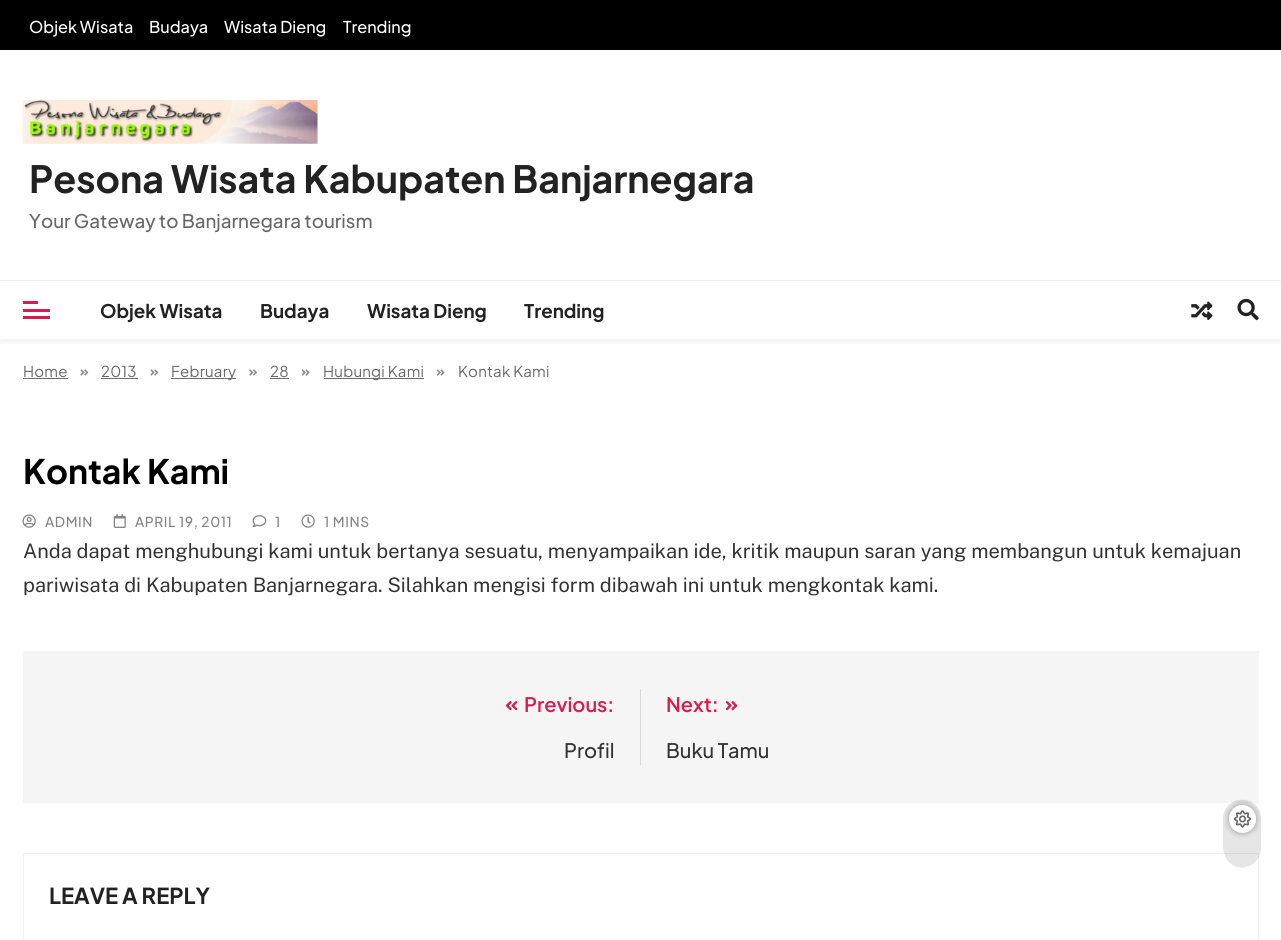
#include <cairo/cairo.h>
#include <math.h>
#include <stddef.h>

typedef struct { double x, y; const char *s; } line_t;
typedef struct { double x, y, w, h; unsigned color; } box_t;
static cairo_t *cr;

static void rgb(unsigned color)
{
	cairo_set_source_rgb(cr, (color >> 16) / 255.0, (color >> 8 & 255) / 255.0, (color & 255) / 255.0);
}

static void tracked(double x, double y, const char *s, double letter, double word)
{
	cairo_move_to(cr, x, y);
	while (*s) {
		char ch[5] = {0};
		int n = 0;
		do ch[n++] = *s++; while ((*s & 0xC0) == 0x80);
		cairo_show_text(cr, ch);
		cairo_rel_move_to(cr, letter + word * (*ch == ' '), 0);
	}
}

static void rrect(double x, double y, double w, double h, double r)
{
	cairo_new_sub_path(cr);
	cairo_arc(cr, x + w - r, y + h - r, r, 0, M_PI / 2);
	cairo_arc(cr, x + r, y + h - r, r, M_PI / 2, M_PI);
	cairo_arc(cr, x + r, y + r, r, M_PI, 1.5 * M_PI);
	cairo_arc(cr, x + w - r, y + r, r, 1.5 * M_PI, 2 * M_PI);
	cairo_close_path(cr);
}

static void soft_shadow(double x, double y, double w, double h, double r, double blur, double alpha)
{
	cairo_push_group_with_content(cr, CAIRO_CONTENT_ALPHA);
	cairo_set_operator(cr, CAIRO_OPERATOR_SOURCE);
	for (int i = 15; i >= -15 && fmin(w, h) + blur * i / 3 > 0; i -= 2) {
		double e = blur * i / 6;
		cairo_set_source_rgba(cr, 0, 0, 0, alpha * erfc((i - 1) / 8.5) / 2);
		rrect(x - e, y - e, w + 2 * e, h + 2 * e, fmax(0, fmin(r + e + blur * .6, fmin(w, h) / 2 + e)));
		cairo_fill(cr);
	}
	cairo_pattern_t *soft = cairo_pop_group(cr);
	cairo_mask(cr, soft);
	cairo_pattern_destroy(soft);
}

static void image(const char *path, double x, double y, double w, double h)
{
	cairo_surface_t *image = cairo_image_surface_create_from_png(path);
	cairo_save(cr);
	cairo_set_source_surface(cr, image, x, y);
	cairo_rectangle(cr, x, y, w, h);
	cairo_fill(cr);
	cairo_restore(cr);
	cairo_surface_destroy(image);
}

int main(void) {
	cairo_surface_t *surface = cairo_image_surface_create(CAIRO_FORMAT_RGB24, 1281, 940);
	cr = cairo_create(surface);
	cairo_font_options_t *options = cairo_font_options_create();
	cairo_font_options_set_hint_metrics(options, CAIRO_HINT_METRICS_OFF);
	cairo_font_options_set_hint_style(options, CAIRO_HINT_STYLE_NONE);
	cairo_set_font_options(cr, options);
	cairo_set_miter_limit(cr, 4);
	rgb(0xffffff);
	cairo_paint(cr);
	rgb(0x000000);
	cairo_rectangle(cr, 0, 0, 1281, 50);
	cairo_fill(cr);
	cairo_save(cr);
	cairo_rectangle(cr, 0, 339, 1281, 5);
	cairo_clip(cr);
	rgb(0x000000);
	soft_shadow(0, 54, 1281, 289, 0, 2.5, 0.05);
	cairo_restore(cr);
	image("img/1.png", 22, 100, 296, 44);
	{
		static const box_t items[] = {
			{2, 338, 1277, 1, 0xffffff},
			{0, 280, 1281, 1, 0xefefef},
			{23, 301, 15, 3, 0xd71d4f},
			{23, 309, 27, 3, 0xd71d4f},
			{23, 316, 27, 3, 0xd71d4f},
		};
		for (size_t i = 0; i < sizeof items / sizeof *items; i++) {
			rgb(items[i].color);
			cairo_rectangle(cr, items[i].x, items[i].y, items[i].w, items[i].h);
			cairo_fill(cr);
		}
	}
	image("img/2.png", 1191, 301, 22, 20);
	image("img/3.png", 1237, 298, 22, 23);
	rgb(0x6c6c6c);
	cairo_rectangle(cr, 23, 378, 45, 1);
	cairo_fill(cr);
	image("img/4.png", 80, 369, 9, 7);
	cairo_rectangle(cr, 101, 378, 37, 1);
	cairo_fill(cr);
	image("img/4.png", 150, 369, 9, 7);
	cairo_rectangle(cr, 171, 378, 65, 1);
	cairo_fill(cr);
	image("img/5.png", 249, 369, 8, 7);
	cairo_rectangle(cr, 270, 378, 19, 1);
	cairo_fill(cr);
	image("img/6.png", 301, 369, 9, 7);
	cairo_rectangle(cr, 324, 378, 100, 1);
	cairo_fill(cr);
	image("img/6.png", 436, 369, 9, 7);
	image("img/7.png", 22, 514, 14, 14);
	image("img/8.png", 113, 514, 13, 14);
	image("img/9.png", 252, 515, 15, 13);
	image("img/10.png", 301, 514, 14, 14);
	rgb(0xf5f5f5);
	cairo_rectangle(cr, 23, 651, 1236, 152);
	cairo_fill(cr);
	rgb(0xd9d9d9);
	cairo_rectangle(cr, 640, 689, 1, 76);
	cairo_fill(cr);
	image("img/11.png", 505, 701, 13, 10);
	image("img/12.png", 725, 701, 13, 10);
	cairo_rectangle(cr, 23.5, 853.5, 1235, 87);
	rgb(0xf0f0f0);
	cairo_set_line_width(cr, 1);
	cairo_stroke(cr);
	cairo_set_source_rgba(cr, 0, 0, 0, 0.1);
	cairo_new_path(cr);
	cairo_move_to(cr, 1261, 819);
	cairo_line_to(cr, 1261, 849);
	cairo_curve_to(cr, 1260, 869, 1233, 875, 1225, 856);
	cairo_curve_to(cr, 1222, 849, 1223, 841, 1223, 834);
	cairo_line_to(cr, 1223, 819);
	cairo_curve_to(cr, 1224, 793, 1261, 794, 1261, 819);
	cairo_close_path(cr);
	cairo_fill(cr);
	rgb(0x000000);
	soft_shadow(1229, 805, 27, 28, 13.5, 3, 0.35);
	rgb(0xffffff);
	rrect(1229, 805, 27, 28, 13.5);
	cairo_fill(cr);
	image("img/13.png", 1233, 810, 19, 18);
	cairo_select_font_face(cr, "Plus Jakarta Sans Medium", CAIRO_FONT_SLANT_NORMAL, CAIRO_FONT_WEIGHT_NORMAL);
	cairo_set_font_size(cr, 16.25);
	{
		static const line_t items[] = {
			{29, 33, "Objek Wisata"},
			{149, 33, "Budaya"},
			{224, 33, "Wisata Dieng"},
			{343, 33, "Trending"},
		};
		for (size_t i = 0; i < sizeof items / sizeof *items; i++) {
			cairo_move_to(cr, items[i].x, items[i].y);
			cairo_show_text(cr, items[i].s);
		}
	}
	cairo_select_font_face(cr, "Plus Jakarta Sans", CAIRO_FONT_SLANT_NORMAL, CAIRO_FONT_WEIGHT_BOLD);
	cairo_set_font_size(cr, 37.5);
	rgb(0x222222);
	cairo_move_to(cr, 29, 193);
	cairo_show_text(cr, "Pesona Wisata Kabupaten Banjarnegara");
	cairo_select_font_face(cr, "Plus Jakarta Sans Medium", CAIRO_FONT_SLANT_NORMAL, CAIRO_FONT_WEIGHT_NORMAL);
	cairo_set_font_size(cr, 18.75);
	rgb(0x686868);
	cairo_move_to(cr, 29, 228);
	cairo_show_text(cr, "Your Gateway to Banjarnegara tourism");
	cairo_select_font_face(cr, "Plus Jakarta Sans", CAIRO_FONT_SLANT_NORMAL, CAIRO_FONT_WEIGHT_BOLD);
	rgb(0x222222);
	{
		static const line_t items[] = {
			{100, 318, "Objek Wisata"},
			{260, 318, "Budaya"},
			{367, 318, "Wisata Dieng"},
			{524, 318, "Trending"},
		};
		for (size_t i = 0; i < sizeof items / sizeof *items; i++) {
			cairo_move_to(cr, items[i].x, items[i].y);
			cairo_show_text(cr, items[i].s);
		}
	}
	cairo_select_font_face(cr, "Plus Jakarta Sans", CAIRO_FONT_SLANT_NORMAL, CAIRO_FONT_WEIGHT_NORMAL);
	cairo_set_font_size(cr, 15);
	rgb(0x686868);
	{
		static const line_t items[] = {
			{23, 377, "Home"},
			{101, 377, "2013"},
			{171, 377, "February"},
			{270, 377, "28"},
			{323, 377, "Hubungi Kami"},
			{458, 377, "Kontak Kami"},
		};
		for (size_t i = 0; i < sizeof items / sizeof *items; i++) {
			tracked(items[i].x, items[i].y, items[i].s, 0.25, 0);
		}
	}
	cairo_select_font_face(cr, "Plus Jakarta Sans", CAIRO_FONT_SLANT_NORMAL, CAIRO_FONT_WEIGHT_BOLD);
	cairo_set_font_size(cr, 33.75);
	rgb(0x000000);
	cairo_move_to(cr, 23, 484);
	cairo_show_text(cr, "Kontak Kami");
	cairo_select_font_face(cr, "Plus Jakarta Sans Medium", CAIRO_FONT_SLANT_NORMAL, CAIRO_FONT_WEIGHT_NORMAL);
	cairo_set_font_size(cr, 13.75);
	rgb(0x858585);
	{
		static const line_t items[] = {
			{45, 527, "ADMIN"},
			{135, 527, "APRIL 19, 2011"},
			{275, 527, "1"},
			{324, 527, "1 MINS"},
		};
		for (size_t i = 0; i < sizeof items / sizeof *items; i++) {
			tracked(items[i].x, items[i].y, items[i].s, 0.6, 0);
		}
	}
	cairo_select_font_face(cr, "Public Sans Thin", CAIRO_FONT_SLANT_NORMAL, CAIRO_FONT_WEIGHT_NORMAL);
	cairo_set_font_size(cr, 20);
	rgb(0x333333);
	cairo_move_to(cr, 23, 558);
	cairo_show_text(cr, "Anda dapat menghubungi kami untuk bertanya sesuatu, menyampaikan ide, kritik maupun saran yang membangun untuk kemajuan");
	cairo_move_to(cr, 23, 592);
	cairo_show_text(cr, "pariwisata di Kabupaten Banjarnegara. Silahkan mengisi form dibawah ini untuk mengkontak kami.");
	cairo_select_font_face(cr, "Plus Jakarta Sans SemiBold", CAIRO_FONT_SLANT_NORMAL, CAIRO_FONT_WEIGHT_NORMAL);
	rgb(0xd71d4f);
	cairo_move_to(cr, 524, 712);
	cairo_show_text(cr, "Previous:");
	cairo_select_font_face(cr, "Plus Jakarta Sans Medium", CAIRO_FONT_SLANT_NORMAL, CAIRO_FONT_WEIGHT_NORMAL);
	rgb(0x333333);
	cairo_move_to(cr, 564, 758);
	cairo_show_text(cr, "Profil");
	cairo_select_font_face(cr, "Plus Jakarta Sans SemiBold", CAIRO_FONT_SLANT_NORMAL, CAIRO_FONT_WEIGHT_NORMAL);
	rgb(0xd71d4f);
	cairo_move_to(cr, 666, 712);
	cairo_show_text(cr, "Next:");
	cairo_select_font_face(cr, "Plus Jakarta Sans Medium", CAIRO_FONT_SLANT_NORMAL, CAIRO_FONT_WEIGHT_NORMAL);
	rgb(0x333333);
	cairo_move_to(cr, 666, 758);
	cairo_show_text(cr, "Buku Tamu");
	cairo_select_font_face(cr, "Plus Jakarta Sans", CAIRO_FONT_SLANT_NORMAL, CAIRO_FONT_WEIGHT_BOLD);
	cairo_set_font_size(cr, 22);
	rgb(0x222222);
	cairo_move_to(cr, 49, 904);
	cairo_show_text(cr, "LEAVE A REPLY");
	cairo_surface_write_to_png(surface, "page.png");
	cairo_font_options_destroy(options);
	cairo_destroy(cr);
	cairo_surface_destroy(surface);
	return 0;
}
